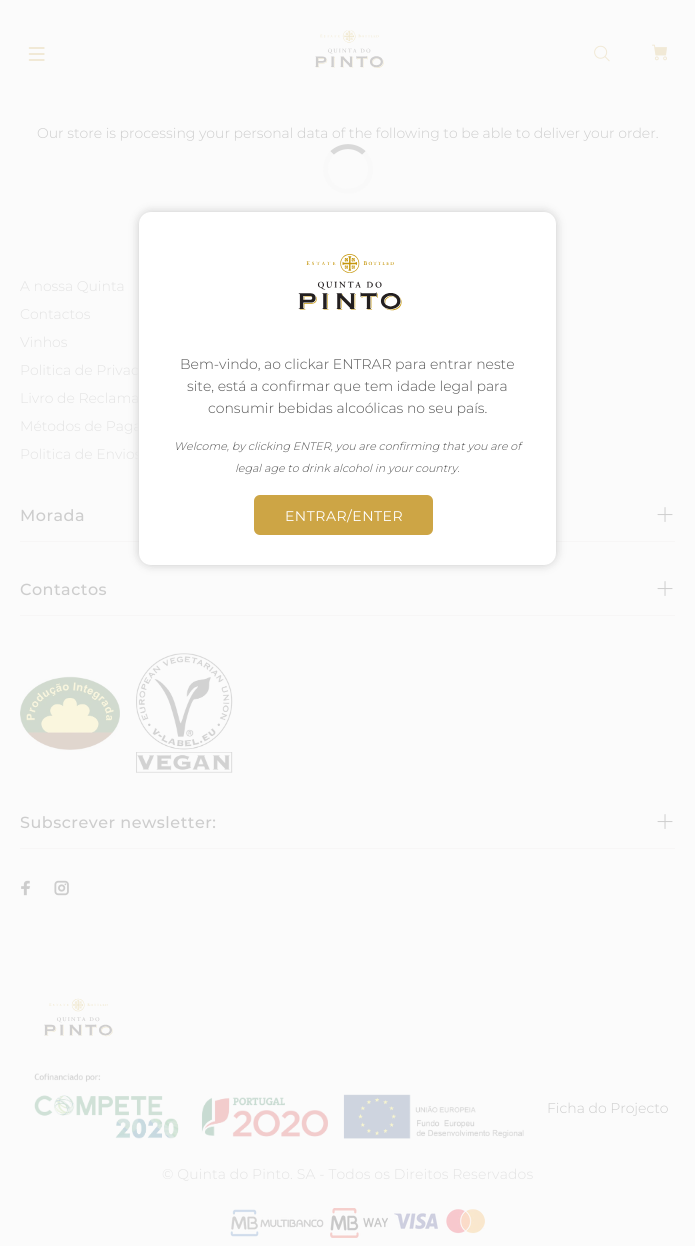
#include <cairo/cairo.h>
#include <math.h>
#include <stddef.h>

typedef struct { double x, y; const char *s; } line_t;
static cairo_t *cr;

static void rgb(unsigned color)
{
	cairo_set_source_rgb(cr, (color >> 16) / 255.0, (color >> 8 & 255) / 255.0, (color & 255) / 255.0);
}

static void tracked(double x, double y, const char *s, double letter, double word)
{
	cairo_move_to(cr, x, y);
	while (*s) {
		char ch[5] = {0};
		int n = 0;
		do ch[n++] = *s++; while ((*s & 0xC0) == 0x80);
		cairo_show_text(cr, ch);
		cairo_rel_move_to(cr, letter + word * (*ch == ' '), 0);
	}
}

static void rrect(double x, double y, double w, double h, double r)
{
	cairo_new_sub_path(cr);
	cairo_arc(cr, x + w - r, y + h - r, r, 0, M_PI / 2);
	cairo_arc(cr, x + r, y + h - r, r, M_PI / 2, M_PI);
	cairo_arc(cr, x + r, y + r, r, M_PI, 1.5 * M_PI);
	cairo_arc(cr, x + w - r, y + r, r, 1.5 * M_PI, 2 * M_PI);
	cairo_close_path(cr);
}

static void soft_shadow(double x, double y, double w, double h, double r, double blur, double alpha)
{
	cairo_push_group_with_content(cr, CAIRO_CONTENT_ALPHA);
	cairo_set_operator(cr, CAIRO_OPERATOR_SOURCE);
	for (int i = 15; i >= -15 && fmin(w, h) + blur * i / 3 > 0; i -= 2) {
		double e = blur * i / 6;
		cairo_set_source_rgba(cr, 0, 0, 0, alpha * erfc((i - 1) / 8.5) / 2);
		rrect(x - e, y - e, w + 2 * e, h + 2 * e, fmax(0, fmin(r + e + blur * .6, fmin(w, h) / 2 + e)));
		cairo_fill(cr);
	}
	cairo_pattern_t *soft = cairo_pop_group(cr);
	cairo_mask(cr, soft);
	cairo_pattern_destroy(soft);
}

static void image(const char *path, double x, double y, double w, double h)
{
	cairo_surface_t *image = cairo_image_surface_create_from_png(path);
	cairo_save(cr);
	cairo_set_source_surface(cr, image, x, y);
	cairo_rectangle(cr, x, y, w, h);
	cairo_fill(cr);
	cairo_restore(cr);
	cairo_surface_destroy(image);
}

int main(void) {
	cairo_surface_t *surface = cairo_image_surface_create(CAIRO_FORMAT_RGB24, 695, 1246);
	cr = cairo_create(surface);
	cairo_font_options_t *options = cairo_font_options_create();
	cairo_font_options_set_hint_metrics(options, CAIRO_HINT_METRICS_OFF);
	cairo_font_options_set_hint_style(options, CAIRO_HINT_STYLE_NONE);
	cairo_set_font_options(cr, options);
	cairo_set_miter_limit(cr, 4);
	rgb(0xfbfbfb);
	cairo_paint(cr);
	image("img/1.png", 28, 47, 17, 14);
	image("img/2.png", 315, 30, 69, 38);
	image("img/3.png", 594, 45, 16, 17);
	image("img/4.png", 652, 44, 15, 17);
	cairo_new_path(cr);
	cairo_move_to(cr, 332, 153);
	cairo_curve_to(cr, 341, 144.5, 355, 144.5, 364, 153);
	rgb(0xd9d9d9);
	cairo_set_line_width(cr, 5);
	cairo_stroke(cr);
	cairo_new_path(cr);
	cairo_move_to(cr, 364, 153);
	cairo_curve_to(cr, 368, 157.5, 370.5, 163, 370.5, 169);
	cairo_curve_to(cr, 370.5, 196, 331, 199.5, 326, 173.5);
	cairo_curve_to(cr, 324.5, 166, 327, 158.5, 332, 153);
	rgb(0xf9f9f9);
	cairo_stroke(cr);
	rgb(0xf7f6f6);
	cairo_rectangle(cr, 20, 541, 655, 1);
	cairo_fill(cr);
	image("img/5.png", 657, 507, 16, 15);
	cairo_rectangle(cr, 20, 615, 655, 1);
	cairo_fill(cr);
	image("img/5.png", 657, 581, 16, 15);
	image("img/6.png", 20, 676, 100, 75);
	image("img/7.png", 136, 653, 97, 120);
	cairo_rectangle(cr, 20, 848, 655, 1);
	cairo_fill(cr);
	image("img/5.png", 657, 814, 16, 15);
	image("img/8.png", 21, 880, 10, 16);
	image("img/9.png", 54, 880, 15, 16);
	image("img/10.png", 44, 998, 69, 39);
	image("img/11.png", 34, 1073, 490, 66);
	image("img/12.png", 230, 1209, 94, 28);
	image("img/13.png", 330, 1208, 58, 30);
	image("img/14.png", 394, 1209, 91, 25);
	rgb(0x000000);
	soft_shadow(139, 212, 417, 353, 12, 5, 0.2);
	cairo_select_font_face(cr, "Montserrat Light", CAIRO_FONT_SLANT_NORMAL, CAIRO_FONT_WEIGHT_NORMAL);
	cairo_set_font_size(cr, 14);
	rgb(0xcdcdcd);
	cairo_move_to(cr, 37, 138);
	cairo_show_text(cr, "Our store is processing your personal data of the following to be able to deliver your order.");
	rgb(0xe3e3e3);
	{
		static const line_t items[] = {
			{20, 291, "A nossa Quinta"},
			{20, 319, "Contactos"},
			{20, 347, "Vinhos"},
			{20, 375, "Politica de Privac"},
			{20, 403, "Livro de Reclama"},
			{20, 431, "Métodos de Paga"},
			{20, 459, "Politica de Envios"},
		};
		for (size_t i = 0; i < sizeof items / sizeof *items; i++) {
			cairo_move_to(cr, items[i].x, items[i].y);
			cairo_show_text(cr, items[i].s);
		}
	}
	cairo_select_font_face(cr, "Montserrat Medium", CAIRO_FONT_SLANT_NORMAL, CAIRO_FONT_WEIGHT_NORMAL);
	cairo_set_font_size(cr, 16);
	rgb(0xcdcdcd);
	{
		static const line_t items[] = {
			{20, 521, "Morada"},
			{20, 595, "Contactos"},
			{20, 828, "Subscrever newsletter:"},
		};
		for (size_t i = 0; i < sizeof items / sizeof *items; i++) {
			tracked(items[i].x, items[i].y, items[i].s, 0.5, 0);
		}
	}
	cairo_select_font_face(cr, "Montserrat Light", CAIRO_FONT_SLANT_NORMAL, CAIRO_FONT_WEIGHT_NORMAL);
	cairo_set_font_size(cr, 14);
	cairo_move_to(cr, 547, 1113);
	cairo_show_text(cr, "Ficha do Projecto");
	rgb(0xe3e3e3);
	tracked(162, 1179, "© Quinta do Pinto. SA - Todos os Direitos Reservados", 0.15, 0);
	rgb(0xffffff);
	rrect(139, 212, 417, 353, 12);
	cairo_fill(cr);
	image("img/15.png", 298, 254, 104, 57);
	rgb(0x555555);
	{
		static const line_t items[] = {
			{180, 369, "Bem-vindo, ao clickar ENTRAR para entrar neste"},
			{187, 391, "site, está a confirmar que tem idade legal para"},
			{208, 413, "consumir bebidas alcoólicas no seu país."},
		};
		for (size_t i = 0; i < sizeof items / sizeof *items; i++) {
			cairo_move_to(cr, items[i].x, items[i].y);
			cairo_show_text(cr, items[i].s);
		}
	}
	cairo_select_font_face(cr, "Montserrat Light", CAIRO_FONT_SLANT_ITALIC, CAIRO_FONT_WEIGHT_NORMAL);
	cairo_set_font_size(cr, 11);
	cairo_move_to(cr, 174, 450);
	cairo_show_text(cr, "Welcome, by clicking ENTER, you are confirming that you are of");
	cairo_move_to(cr, 235, 472);
	cairo_show_text(cr, "legal age to drink alcohol in your country.");
	rgb(0xcda545);
	rrect(254, 495, 179, 40, 6);
	cairo_fill(cr);
	cairo_select_font_face(cr, "Montserrat", CAIRO_FONT_SLANT_NORMAL, CAIRO_FONT_WEIGHT_NORMAL);
	cairo_set_font_size(cr, 14);
	rgb(0xffffff);
	tracked(285, 521, "ENTRAR/ENTER", 0.5, 0);
	cairo_surface_write_to_png(surface, "page.png");
	cairo_font_options_destroy(options);
	cairo_destroy(cr);
	cairo_surface_destroy(surface);
	return 0;
}
